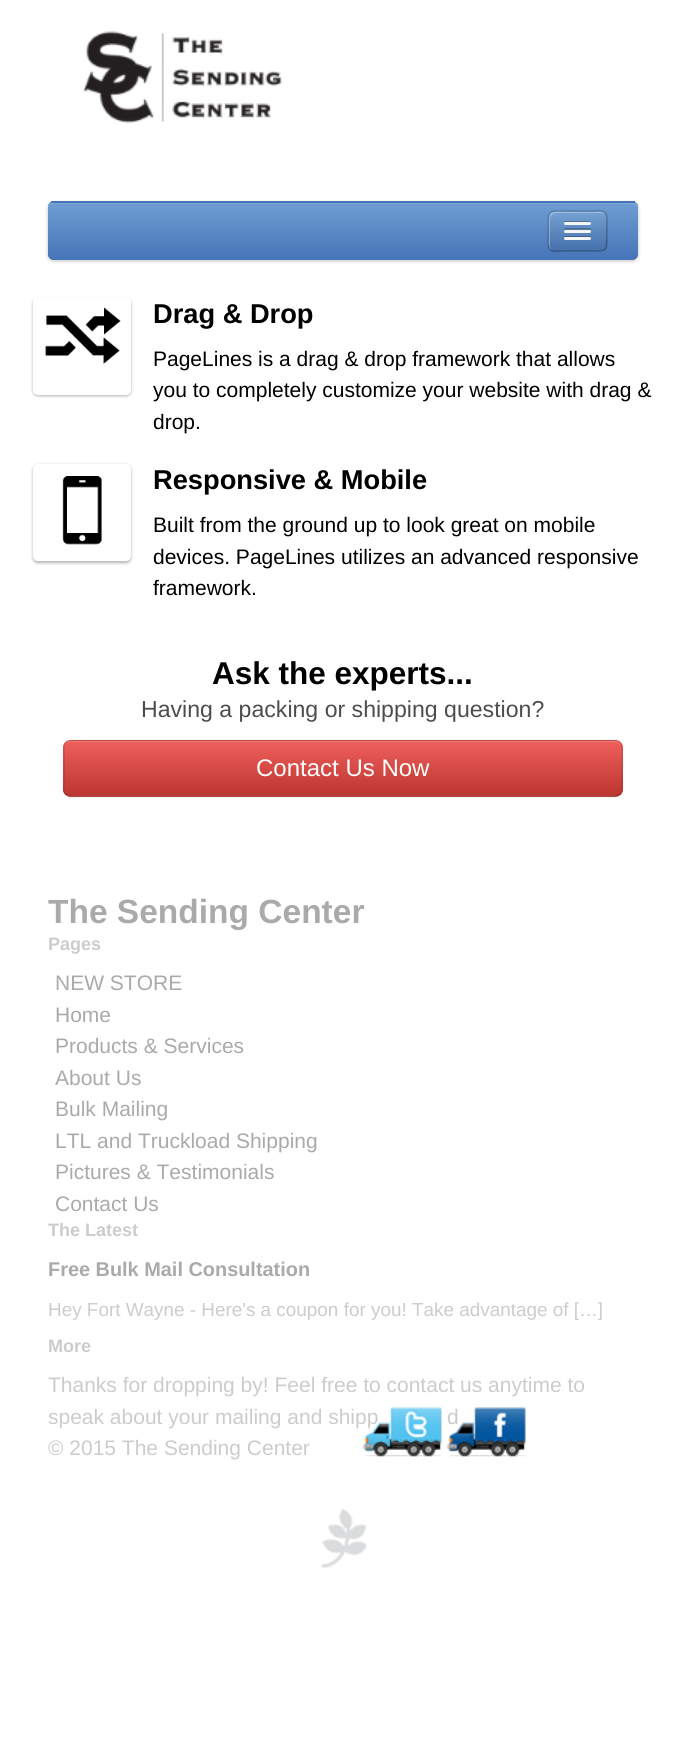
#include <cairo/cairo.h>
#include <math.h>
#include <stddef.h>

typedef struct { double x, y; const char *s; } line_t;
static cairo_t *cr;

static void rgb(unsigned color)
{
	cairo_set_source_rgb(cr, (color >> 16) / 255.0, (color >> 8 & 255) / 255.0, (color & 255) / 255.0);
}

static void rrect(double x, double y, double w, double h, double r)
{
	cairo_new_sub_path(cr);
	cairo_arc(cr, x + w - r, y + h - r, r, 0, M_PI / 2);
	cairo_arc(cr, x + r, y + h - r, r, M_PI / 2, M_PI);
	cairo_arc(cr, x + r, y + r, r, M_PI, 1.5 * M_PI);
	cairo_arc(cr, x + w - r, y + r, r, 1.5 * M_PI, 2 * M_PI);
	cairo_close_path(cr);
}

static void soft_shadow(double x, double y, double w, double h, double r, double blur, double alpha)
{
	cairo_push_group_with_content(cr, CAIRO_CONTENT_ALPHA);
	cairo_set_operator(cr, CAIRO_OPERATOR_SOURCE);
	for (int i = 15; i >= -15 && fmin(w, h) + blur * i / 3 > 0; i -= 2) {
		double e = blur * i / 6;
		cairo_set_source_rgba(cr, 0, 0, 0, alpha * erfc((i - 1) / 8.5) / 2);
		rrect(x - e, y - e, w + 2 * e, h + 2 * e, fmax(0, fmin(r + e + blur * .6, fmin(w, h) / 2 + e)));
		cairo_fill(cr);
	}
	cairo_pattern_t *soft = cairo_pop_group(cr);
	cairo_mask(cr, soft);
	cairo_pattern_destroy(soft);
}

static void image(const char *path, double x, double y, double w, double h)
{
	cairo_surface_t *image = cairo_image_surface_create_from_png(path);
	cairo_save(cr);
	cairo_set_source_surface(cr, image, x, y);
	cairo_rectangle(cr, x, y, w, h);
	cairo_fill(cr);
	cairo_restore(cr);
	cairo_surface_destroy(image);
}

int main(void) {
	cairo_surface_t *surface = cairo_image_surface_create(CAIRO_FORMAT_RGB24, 685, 1745);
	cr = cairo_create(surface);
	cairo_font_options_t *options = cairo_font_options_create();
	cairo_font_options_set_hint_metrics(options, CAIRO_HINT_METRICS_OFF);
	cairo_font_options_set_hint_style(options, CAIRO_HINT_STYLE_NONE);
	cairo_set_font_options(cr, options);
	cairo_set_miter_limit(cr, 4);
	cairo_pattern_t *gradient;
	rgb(0xffffff);
	cairo_paint(cr);
	image("img/1.png", 83, 31, 200, 93);
	rgb(0x000000);
	soft_shadow(48, 203, 590, 58, 6, 2, 0.25);
	rgb(0x5e8dc8);
	rrect(48, 201, 590, 59, 6);
	cairo_fill(cr);
	cairo_save(cr);
	rrect(48, 201, 590, 59, 6);
	cairo_clip(cr);
	gradient = cairo_pattern_create_linear(343, 202, 343, 260);
	cairo_pattern_add_color_stop_rgba(gradient, 0, 0.431, 0.62, 0.824, 1);
	cairo_pattern_add_color_stop_rgba(gradient, 1, 0.271, 0.455, 0.722, 1);
	cairo_set_source(cr, gradient);
	cairo_pattern_destroy(gradient);
	cairo_new_path(cr);
	cairo_move_to(cr, 48, 203);
	cairo_line_to(cr, 638, 203);
	cairo_line_to(cr, 638, 254);
	cairo_curve_to(cr, 638, 257.5, 635.5, 260, 632, 260);
	cairo_line_to(cr, 54, 260);
	cairo_curve_to(cr, 50.5, 260, 48, 257.5, 48, 254);
	cairo_close_path(cr);
	cairo_fill(cr);
	cairo_restore(cr);
	cairo_set_source_rgba(cr, 1, 1, 1, 0.1);
	cairo_new_path(cr);
	cairo_move_to(cr, 54, 204);
	cairo_line_to(cr, 632, 204);
	cairo_curve_to(cr, 634, 204, 636, 205, 637, 207);
	cairo_curve_to(cr, 637, 204, 635, 202, 632, 202);
	cairo_line_to(cr, 54, 202);
	cairo_curve_to(cr, 51, 202, 48, 205, 48, 207);
	cairo_line_to(cr, 48, 208);
	cairo_curve_to(cr, 48, 206, 51, 204, 54, 204);
	cairo_close_path(cr);
	cairo_fill(cr);
	rgb(0x4574b8);
	cairo_rectangle(cr, 51, 201, 584, 2);
	cairo_fill(cr);
	cairo_save(cr);
	rrect(548, 210, 60, 42, 8);
	cairo_clip(cr);
	gradient = cairo_pattern_create_linear(578, 212, 578, 251);
	cairo_pattern_add_color_stop_rgba(gradient, 0, 1, 1, 1, 0.1);
	cairo_pattern_add_color_stop_rgba(gradient, 1, 0, 0, 0, 0.08);
	cairo_set_source(cr, gradient);
	cairo_pattern_destroy(gradient);
	cairo_rectangle(cr, 548, 212, 60, 39);
	cairo_fill(cr);
	cairo_restore(cr);
	cairo_set_source_rgba(cr, 1, 1, 1, 0.3);
	cairo_new_path(cr);
	cairo_move_to(cr, 556, 213);
	cairo_line_to(cr, 604, 213);
	cairo_curve_to(cr, 601, 211, 595, 212, 592, 212);
	cairo_line_to(cr, 578, 212);
	cairo_curve_to(cr, 546, 212, 549, 207, 549, 236);
	cairo_curve_to(cr, 549, 240, 547, 247, 552, 250);
	cairo_curve_to(cr, 551, 249, 550, 247, 550, 246);
	cairo_line_to(cr, 550, 219);
	cairo_curve_to(cr, 550, 216, 553, 213, 556, 213);
	cairo_close_path(cr);
	cairo_fill(cr);
	cairo_new_path(cr);
	cairo_move_to(cr, 605, 212.5);
	cairo_curve_to(cr, 607.5, 215.5, 607, 218.5, 607, 222);
	cairo_line_to(cr, 606.5, 246);
	cairo_curve_to(cr, 605.5, 252.5, 597.5, 251, 592.5, 251);
	cairo_line_to(cr, 562.5, 251);
	cairo_curve_to(cr, 559, 251, 553.5, 252.5, 550, 249.5);
	cairo_set_source_rgba(cr, 0, 0, 0, 0.25);
	cairo_set_line_width(cr, 1.5);
	cairo_stroke(cr);
	cairo_new_path(cr);
	cairo_move_to(cr, 550, 249.5);
	cairo_curve_to(cr, 547.5, 246.5, 548, 243.5, 548, 240);
	cairo_line_to(cr, 548.5, 216);
	cairo_curve_to(cr, 549.5, 209.5, 557.5, 211, 562.5, 211);
	cairo_line_to(cr, 592.5, 211);
	cairo_curve_to(cr, 596, 211, 601.5, 209.5, 605, 212.5);
	cairo_set_source_rgba(cr, 0, 0, 0, 0.17);
	cairo_stroke(cr);
	rgb(0x507095);
	cairo_new_path(cr);
	cairo_move_to(cr, 565.5, 221);
	cairo_curve_to(cr, 564.5, 221, 564, 222, 564, 223);
	cairo_curve_to(cr, 564.5, 222.5, 565, 222, 565.5, 222);
	cairo_line_to(cr, 589.5, 222);
	cairo_curve_to(cr, 590, 222, 590.5, 222.5, 591, 223);
	cairo_curve_to(cr, 591, 222, 590.5, 221, 589.5, 221);
	cairo_close_path(cr);
	cairo_fill(cr);
	rgb(0xf5f5f5);
	rrect(564, 222, 27, 3, 1.5);
	cairo_fill(cr);
	rgb(0x496990);
	cairo_new_path(cr);
	cairo_move_to(cr, 565.5, 228);
	cairo_curve_to(cr, 564.5, 228, 563.5, 229.5, 564, 230);
	cairo_curve_to(cr, 564.5, 230, 565, 229.5, 565.5, 229.5);
	cairo_line_to(cr, 589.5, 229.5);
	cairo_curve_to(cr, 590, 229.5, 590.5, 230, 591, 230);
	cairo_curve_to(cr, 591.5, 229.5, 590.5, 228, 589.5, 228);
	cairo_close_path(cr);
	cairo_fill(cr);
	rgb(0xf5f5f5);
	rrect(564, 230, 27, 3, 1.5);
	cairo_fill(cr);
	rgb(0x42628b);
	cairo_new_path(cr);
	cairo_move_to(cr, 565.5, 236);
	cairo_curve_to(cr, 564.5, 236, 564, 237, 564, 238);
	cairo_curve_to(cr, 564.5, 237.5, 565, 237, 565.5, 237);
	cairo_line_to(cr, 589.5, 237);
	cairo_curve_to(cr, 590, 237, 590.5, 237.5, 591, 238);
	cairo_curve_to(cr, 591, 237, 590.5, 236, 589.5, 236);
	cairo_close_path(cr);
	cairo_fill(cr);
	rgb(0xf5f5f5);
	rrect(564, 237, 27, 3, 1.5);
	cairo_fill(cr);
	rgb(0x000000);
	soft_shadow(33, 299, 98, 97, 5, 1.5, 0.3);
	rgb(0xffffff);
	rrect(34, 298, 96, 96, 4);
	cairo_fill_preserve(cr);
	cairo_set_line_width(cr, 2);
	cairo_stroke(cr);
	image("img/2.png", 45, 307, 76, 57);
	rgb(0x000000);
	soft_shadow(33, 465, 98, 98, 5, 1.5, 0.3);
	rgb(0xffffff);
	rrect(34, 465, 96, 95, 4);
	cairo_fill_preserve(cr);
	cairo_stroke(cr);
	image("img/3.png", 62, 476, 40, 69);
	rgb(0x000000);
	soft_shadow(63, 741, 560, 57, 8, 1.5, 0.05);
	rgb(0xda4f49);
	rrect(63, 740, 560, 57, 8);
	cairo_fill(cr);
	cairo_save(cr);
	rrect(63, 740, 560, 57, 8);
	cairo_clip(cr);
	gradient = cairo_pattern_create_linear(343, 741, 343, 795);
	cairo_pattern_add_color_stop_rgba(gradient, 0, 0.933, 0.373, 0.357, 1);
	cairo_pattern_add_color_stop_rgba(gradient, 1, 0.741, 0.212, 0.184, 1);
	cairo_set_source(cr, gradient);
	cairo_pattern_destroy(gradient);
	cairo_rectangle(cr, 63, 741, 560, 54);
	cairo_fill(cr);
	cairo_restore(cr);
	rgb(0xf17f7c);
	cairo_new_path(cr);
	cairo_move_to(cr, 70, 742);
	cairo_line_to(cr, 615, 742);
	cairo_curve_to(cr, 618, 742, 621, 745, 621, 748);
	cairo_line_to(cr, 621, 747);
	cairo_curve_to(cr, 621, 744, 618, 741, 615, 741);
	cairo_line_to(cr, 71, 741);
	cairo_curve_to(cr, 69, 741, 67, 742, 66, 744);
	cairo_curve_to(cr, 67, 743, 69, 742, 70, 742);
	cairo_close_path(cr);
	cairo_fill(cr);
	cairo_new_path(cr);
	cairo_move_to(cr, 620, 794);
	cairo_curve_to(cr, 618.5, 795, 617, 796, 615, 796);
	cairo_line_to(cr, 70.5, 796);
	cairo_curve_to(cr, 68.5, 796, 67, 795, 65.5, 794);
	cairo_set_source_rgba(cr, 0, 0, 0, 0.25);
	cairo_set_line_width(cr, 1.5);
	cairo_stroke(cr);
	cairo_new_path(cr);
	cairo_move_to(cr, 65.5, 794);
	cairo_curve_to(cr, 62.5, 791, 64, 785.5, 64, 782);
	cairo_line_to(cr, 64, 754);
	cairo_curve_to(cr, 64, 749, 62.5, 741.5, 69, 740.5);
	cairo_line_to(cr, 616.5, 740.5);
	cairo_curve_to(cr, 623, 741.5, 622, 749, 622, 754);
	cairo_line_to(cr, 622, 782);
	cairo_curve_to(cr, 622, 785.5, 623, 791, 620, 794);
	cairo_set_source_rgba(cr, 0, 0, 0, 0.1);
	cairo_stroke(cr);
	image("img/4.png", 321, 1509, 45, 59);
	cairo_select_font_face(cr, "Liberation Sans", CAIRO_FONT_SLANT_NORMAL, CAIRO_FONT_WEIGHT_BOLD);
	cairo_set_font_size(cr, 27.25);
	rgb(0x000000);
	cairo_move_to(cr, 153, 323);
	cairo_show_text(cr, "Drag & Drop");
	cairo_select_font_face(cr, "Liberation Sans", CAIRO_FONT_SLANT_NORMAL, CAIRO_FONT_WEIGHT_NORMAL);
	cairo_set_font_size(cr, 21);
	{
		static const line_t items[] = {
			{153, 366, "PageLines is a drag & drop framework that allows"},
			{153, 397, "you to completely customize your website with drag &"},
			{153, 429, "drop."},
		};
		for (size_t i = 0; i < sizeof items / sizeof *items; i++) {
			cairo_move_to(cr, items[i].x, items[i].y);
			cairo_show_text(cr, items[i].s);
		}
	}
	cairo_select_font_face(cr, "Liberation Sans", CAIRO_FONT_SLANT_NORMAL, CAIRO_FONT_WEIGHT_BOLD);
	cairo_set_font_size(cr, 27.25);
	cairo_move_to(cr, 153, 489);
	cairo_show_text(cr, "Responsive & Mobile");
	cairo_select_font_face(cr, "Liberation Sans", CAIRO_FONT_SLANT_NORMAL, CAIRO_FONT_WEIGHT_NORMAL);
	cairo_set_font_size(cr, 21);
	{
		static const line_t items[] = {
			{153, 532, "Built from the ground up to look great on mobile"},
			{153, 564, "devices. PageLines utilizes an advanced responsive"},
			{153, 595, "framework."},
		};
		for (size_t i = 0; i < sizeof items / sizeof *items; i++) {
			cairo_move_to(cr, items[i].x, items[i].y);
			cairo_show_text(cr, items[i].s);
		}
	}
	cairo_select_font_face(cr, "Liberation Sans", CAIRO_FONT_SLANT_NORMAL, CAIRO_FONT_WEIGHT_BOLD);
	cairo_set_font_size(cr, 31.5);
	cairo_move_to(cr, 212, 684);
	cairo_show_text(cr, "Ask the experts...");
	cairo_select_font_face(cr, "Liberation Sans", CAIRO_FONT_SLANT_NORMAL, CAIRO_FONT_WEIGHT_NORMAL);
	cairo_set_font_size(cr, 23.1);
	rgb(0x4d4d4d);
	cairo_move_to(cr, 141, 717);
	cairo_show_text(cr, "Having a packing or shipping question?");
	cairo_set_font_size(cr, 24);
	rgb(0xffffff);
	cairo_move_to(cr, 256, 776);
	cairo_show_text(cr, "Contact Us Now");
	cairo_select_font_face(cr, "Liberation Sans", CAIRO_FONT_SLANT_NORMAL, CAIRO_FONT_WEIGHT_BOLD);
	cairo_set_font_size(cr, 33.5);
	rgb(0xaaaaaa);
	cairo_move_to(cr, 48, 923);
	cairo_show_text(cr, "The Sending Center");
	cairo_set_font_size(cr, 18);
	rgb(0xcccccc);
	cairo_move_to(cr, 48, 950);
	cairo_show_text(cr, "Pages");
	cairo_select_font_face(cr, "Liberation Sans", CAIRO_FONT_SLANT_NORMAL, CAIRO_FONT_WEIGHT_NORMAL);
	cairo_set_font_size(cr, 21);
	rgb(0xaaaaaa);
	{
		static const line_t items[] = {
			{55, 990, "NEW STORE"},
			{55, 1022, "Home"},
			{55, 1053, "Products & Services"},
			{55, 1085, "About Us"},
			{55, 1116, "Bulk Mailing"},
			{55, 1148, "LTL and Truckload Shipping"},
			{55, 1179, "Pictures & Testimonials"},
			{55, 1211, "Contact Us"},
		};
		for (size_t i = 0; i < sizeof items / sizeof *items; i++) {
			cairo_move_to(cr, items[i].x, items[i].y);
			cairo_show_text(cr, items[i].s);
		}
	}
	cairo_select_font_face(cr, "Liberation Sans", CAIRO_FONT_SLANT_NORMAL, CAIRO_FONT_WEIGHT_BOLD);
	cairo_set_font_size(cr, 18);
	rgb(0xcccccc);
	cairo_move_to(cr, 48, 1236);
	cairo_show_text(cr, "The Latest");
	cairo_set_font_size(cr, 19.9);
	rgb(0xaaaaaa);
	cairo_move_to(cr, 48, 1276);
	cairo_show_text(cr, "Free Bulk Mail Consultation");
	cairo_select_font_face(cr, "Liberation Sans", CAIRO_FONT_SLANT_NORMAL, CAIRO_FONT_WEIGHT_NORMAL);
	cairo_set_font_size(cr, 18.9);
	rgb(0xcccccc);
	cairo_move_to(cr, 48, 1316);
	cairo_show_text(cr, "Hey Fort Wayne - Here's a coupon for you! Take advantage of […]");
	cairo_select_font_face(cr, "Liberation Sans", CAIRO_FONT_SLANT_NORMAL, CAIRO_FONT_WEIGHT_BOLD);
	cairo_set_font_size(cr, 18);
	cairo_move_to(cr, 48, 1352);
	cairo_show_text(cr, "More");
	cairo_select_font_face(cr, "Liberation Sans", CAIRO_FONT_SLANT_NORMAL, CAIRO_FONT_WEIGHT_NORMAL);
	cairo_set_font_size(cr, 21);
	{
		static const line_t items[] = {
			{48, 1392, "Thanks for dropping by! Feel free to contact us anytime to"},
			{48, 1424, "speak about your mailing and shipp"},
			{447, 1424, "d"},
			{48, 1455, "© 2015 The Sending Center"},
		};
		for (size_t i = 0; i < sizeof items / sizeof *items; i++) {
			cairo_move_to(cr, items[i].x, items[i].y);
			cairo_show_text(cr, items[i].s);
		}
	}
	image("img/5.png", 362, 1407, 80, 50);
	image("img/6.png", 446, 1407, 80, 50);
	cairo_surface_write_to_png(surface, "page.png");
	cairo_font_options_destroy(options);
	cairo_destroy(cr);
	cairo_surface_destroy(surface);
	return 0;
}
